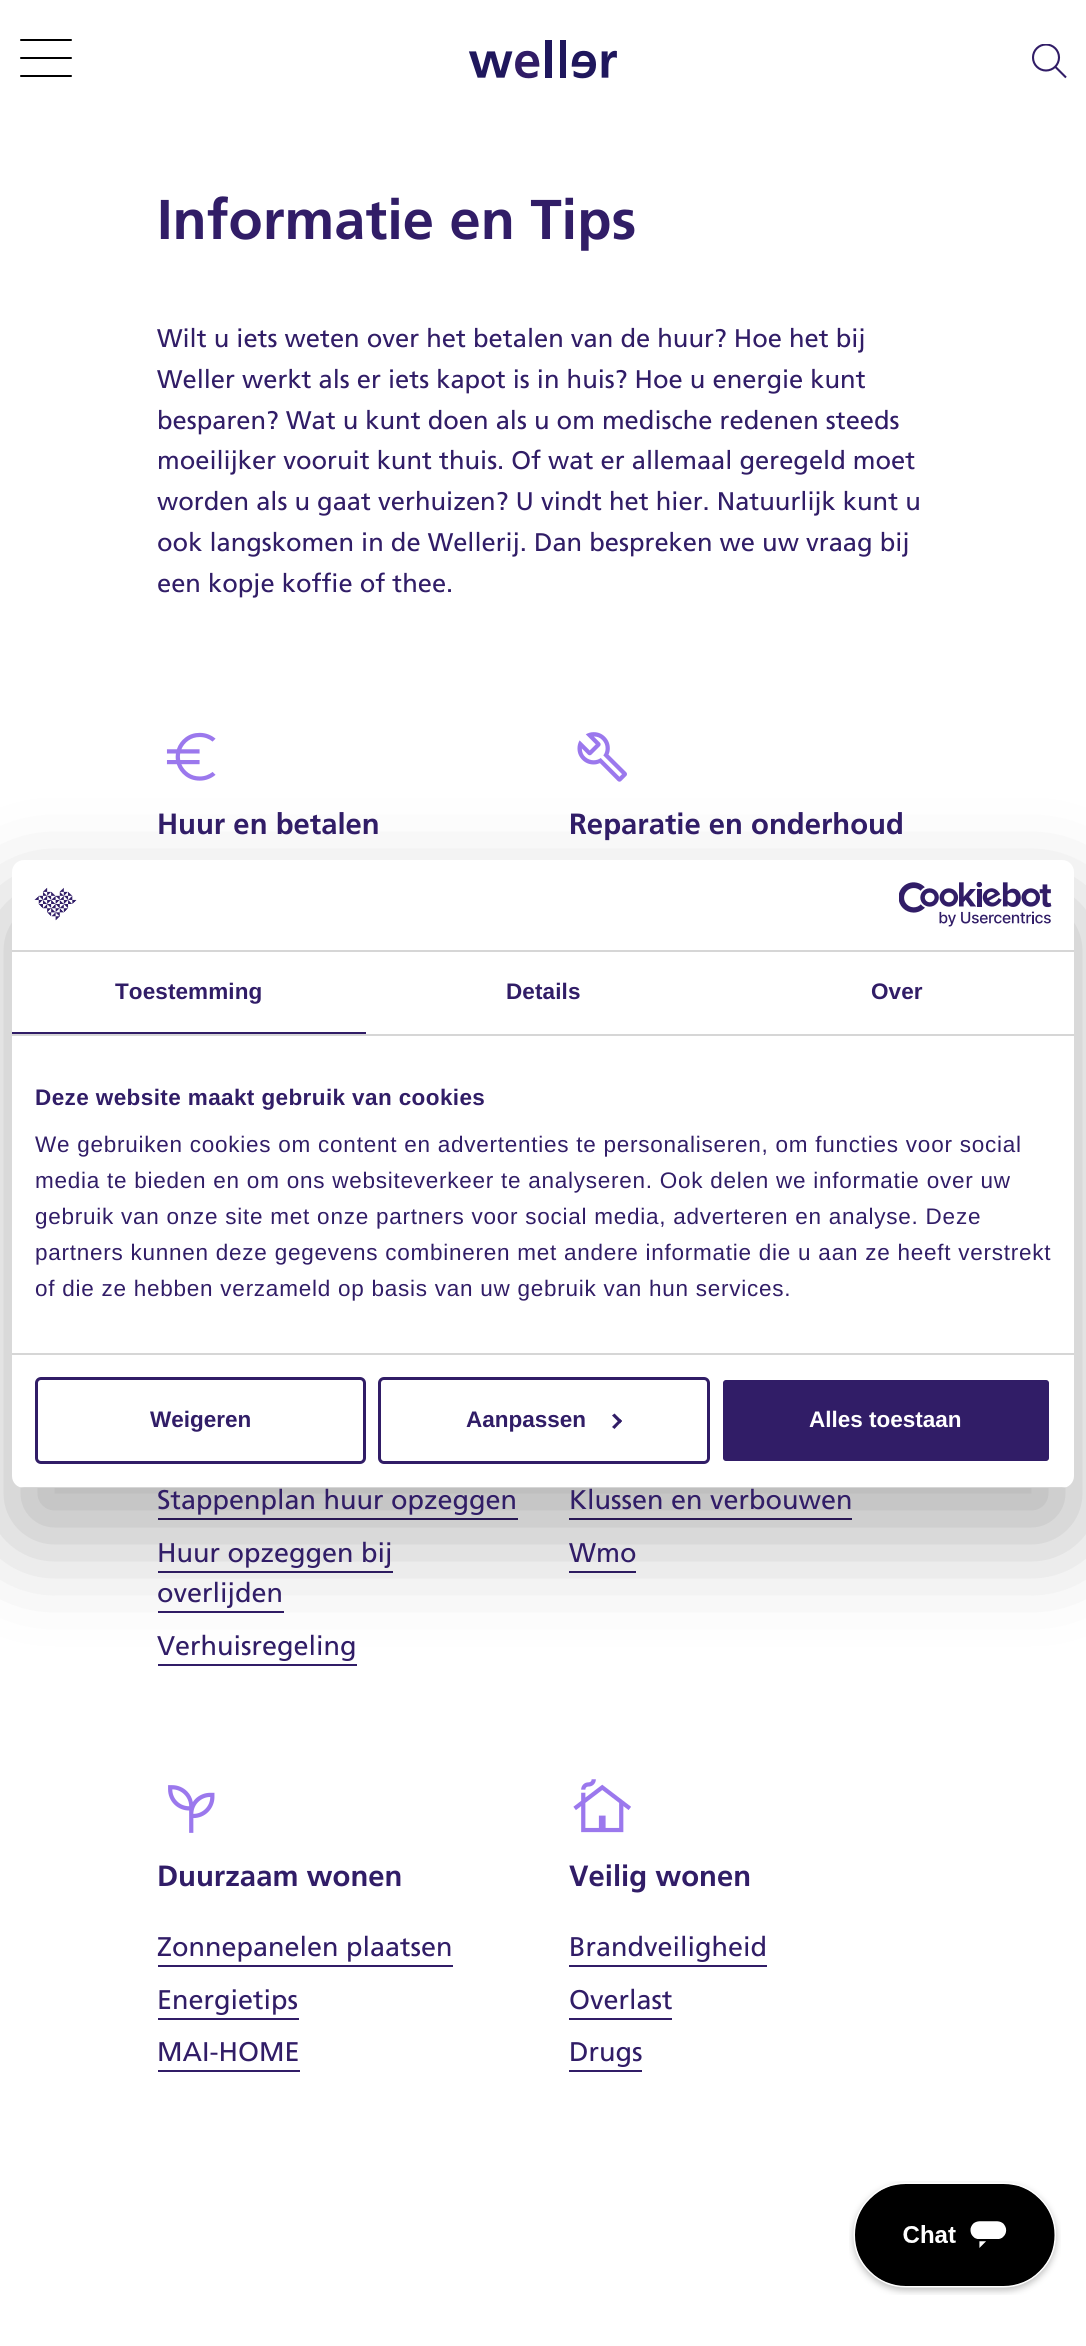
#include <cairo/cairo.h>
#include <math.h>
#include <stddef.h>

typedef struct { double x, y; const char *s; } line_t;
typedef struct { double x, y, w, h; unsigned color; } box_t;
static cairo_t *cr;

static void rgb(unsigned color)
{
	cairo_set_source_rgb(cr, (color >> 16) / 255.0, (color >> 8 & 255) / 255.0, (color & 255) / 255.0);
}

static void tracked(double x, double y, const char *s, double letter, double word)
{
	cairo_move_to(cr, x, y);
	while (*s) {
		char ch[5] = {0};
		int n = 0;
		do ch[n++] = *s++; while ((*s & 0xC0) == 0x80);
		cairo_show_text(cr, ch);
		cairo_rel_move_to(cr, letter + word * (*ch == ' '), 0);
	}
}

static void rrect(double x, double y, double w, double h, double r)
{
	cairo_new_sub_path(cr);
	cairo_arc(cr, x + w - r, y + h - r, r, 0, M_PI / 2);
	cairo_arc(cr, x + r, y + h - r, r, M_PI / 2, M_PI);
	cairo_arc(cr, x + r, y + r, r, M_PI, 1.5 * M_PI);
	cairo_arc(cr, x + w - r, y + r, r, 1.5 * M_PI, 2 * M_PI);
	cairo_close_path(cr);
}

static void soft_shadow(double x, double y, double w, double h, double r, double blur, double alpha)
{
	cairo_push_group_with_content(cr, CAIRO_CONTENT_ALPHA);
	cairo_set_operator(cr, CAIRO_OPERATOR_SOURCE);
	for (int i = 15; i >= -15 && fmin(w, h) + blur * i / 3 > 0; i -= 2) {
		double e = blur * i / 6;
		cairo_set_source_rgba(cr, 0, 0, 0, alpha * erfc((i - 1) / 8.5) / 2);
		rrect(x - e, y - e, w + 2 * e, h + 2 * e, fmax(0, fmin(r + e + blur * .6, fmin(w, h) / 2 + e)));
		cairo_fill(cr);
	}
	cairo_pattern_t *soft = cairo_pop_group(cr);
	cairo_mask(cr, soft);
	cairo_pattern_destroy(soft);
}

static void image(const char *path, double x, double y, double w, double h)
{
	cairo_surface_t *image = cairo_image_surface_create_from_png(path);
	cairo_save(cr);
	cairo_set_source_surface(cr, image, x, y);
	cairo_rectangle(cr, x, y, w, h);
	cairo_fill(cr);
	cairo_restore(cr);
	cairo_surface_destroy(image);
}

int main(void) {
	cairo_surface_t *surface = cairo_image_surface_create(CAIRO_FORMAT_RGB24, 1086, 2346);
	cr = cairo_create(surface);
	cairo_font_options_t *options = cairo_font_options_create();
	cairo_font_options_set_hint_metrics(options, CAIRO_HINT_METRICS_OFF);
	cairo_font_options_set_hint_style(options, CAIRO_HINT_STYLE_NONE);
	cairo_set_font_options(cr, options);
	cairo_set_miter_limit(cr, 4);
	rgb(0xffffff);
	cairo_paint(cr);
	rgb(0x000000);
	rrect(20, 57, 52, 2, 1);
	cairo_fill(cr);
	rrect(20, 39, 52, 2, 1);
	cairo_fill(cr);
	rrect(20, 75, 52, 2, 1);
	cairo_fill(cr);
	image("img/1.png", 468, 40, 149, 39);
	cairo_save(cr);
	cairo_rectangle(cr, 1032, 44, 35, 34);
	cairo_clip(cr);
	cairo_arc(cr, 1046, 57.5, 13, 0, 2 * M_PI);
	rgb(0x311d67);
	cairo_set_line_width(cr, 2.1);
	cairo_stroke(cr);
	cairo_restore(cr);
	cairo_new_path(cr);
	cairo_move_to(cr, 1055, 66.5);
	cairo_line_to(cr, 1066, 77.5);
	rgb(0x311d67);
	cairo_set_line_width(cr, 2.1);
	cairo_stroke(cr);
	image("img/2.png", 166, 732, 50, 49);
	image("img/3.png", 577, 732, 50, 50);
	{
		static const box_t items[] = {
			{158, 1518, 360, 2, 0x311d67},
			{158, 1571, 235, 2, 0x311d67},
			{158, 1611, 126, 2, 0x311d67},
			{158, 1664, 199, 2, 0x311d67},
			{569, 1518, 283, 2, 0x311d67},
			{569, 1571, 67, 2, 0x311d67},
		};
		for (size_t i = 0; i < sizeof items / sizeof *items; i++) {
			rgb(items[i].color);
			cairo_rectangle(cr, items[i].x, items[i].y, items[i].w, items[i].h);
			cairo_fill(cr);
		}
	}
	image("img/4.png", 168, 1785, 47, 48);
	{
		static const box_t items[] = {
			{158, 1965, 295, 2, 0x311d67},
			{158, 2018, 141, 2, 0x311d67},
			{158, 2070, 142, 2, 0x311d67},
		};
		for (size_t i = 0; i < sizeof items / sizeof *items; i++) {
			rgb(items[i].color);
			cairo_rectangle(cr, items[i].x, items[i].y, items[i].w, items[i].h);
			cairo_fill(cr);
		}
	}
	image("img/5.png", 573, 1779, 58, 54);
	{
		static const box_t items[] = {
			{569, 1965, 198, 2, 0x311d67},
			{569, 2018, 103, 2, 0x311d67},
			{569, 2070, 73, 2, 0x311d67},
		};
		for (size_t i = 0; i < sizeof items / sizeof *items; i++) {
			rgb(items[i].color);
			cairo_rectangle(cr, items[i].x, items[i].y, items[i].w, items[i].h);
			cairo_fill(cr);
		}
	}
	rgb(0x000000);
	soft_shadow(12, 908, 1062, 628, 12, 51, 0.3);
	rgb(0xffffff);
	rrect(12, 860, 1062, 628, 12);
	cairo_fill(cr);
	rgb(0xd6d6d6);
	cairo_rectangle(cr, 12, 950, 1062, 2);
	cairo_fill(cr);
	image("img/6.png", 34, 887, 43, 34);
	image("img/7.png", 899, 882, 153, 45);
	{
		static const box_t items[] = {
			{12, 1034, 1062, 2, 0xd6d6d6},
			{12, 1032, 354, 2, 0x311d67},
			{12, 1353, 1062, 2, 0xd6d6d6},
		};
		for (size_t i = 0; i < sizeof items / sizeof *items; i++) {
			rgb(items[i].color);
			cairo_rectangle(cr, items[i].x, items[i].y, items[i].w, items[i].h);
			cairo_fill(cr);
		}
	}
	cairo_save(cr);
	rrect(12, 860, 1062, 628, 12);
	cairo_clip(cr);
	cairo_rectangle(cr, 12, 1487, 1062, 1);
	cairo_fill(cr);
	cairo_restore(cr);
	rrect(36.5, 1378.5, 328, 84, 4.5);
	rgb(0x311d67);
	cairo_set_line_width(cr, 3);
	cairo_stroke(cr);
	rrect(379.5, 1378.5, 329, 84, 4.5);
	cairo_stroke(cr);
	cairo_new_path(cr);
	cairo_move_to(cr, 614.5, 1413.5);
	cairo_line_to(cr, 622, 1421);
	cairo_line_to(cr, 620, 1423.5);
	cairo_line_to(cr, 612, 1415.5);
	cairo_close_path(cr);
	cairo_fill(cr);
	cairo_new_path(cr);
	cairo_move_to(cr, 620, 1419);
	cairo_line_to(cr, 622, 1421);
	cairo_line_to(cr, 614.5, 1429);
	cairo_line_to(cr, 612, 1427);
	cairo_close_path(cr);
	cairo_fill(cr);
	rrect(721.5, 1378.5, 329, 84, 4.5);
	cairo_fill_preserve(cr);
	rgb(0xffffff);
	cairo_stroke(cr);
	image("img/8.png", 849, 2181, 212, 114);
	cairo_select_font_face(cr, "Frutiger", CAIRO_FONT_SLANT_NORMAL, CAIRO_FONT_WEIGHT_BOLD);
	cairo_set_font_size(cr, 56);
	rgb(0x311d67);
	cairo_move_to(cr, 157, 239);
	cairo_show_text(cr, "Informatie en Tips");
	cairo_select_font_face(cr, "Frutiger", CAIRO_FONT_SLANT_NORMAL, CAIRO_FONT_WEIGHT_NORMAL);
	cairo_set_font_size(cr, 25.5);
	{
		static const line_t items[] = {
			{157, 347, "Wilt u iets weten over het betalen van de huur? Hoe het bij"},
			{157, 388, "Weller werkt als er iets kapot is in huis? Hoe u energie kunt"},
			{157, 429, "besparen? Wat u kunt doen als u om medische redenen steeds"},
			{157, 469, "moeilijker vooruit kunt thuis. Of wat er allemaal geregeld moet"},
			{157, 510, "worden als u gaat verhuizen? U vindt het hier. Natuurlijk kunt u"},
			{157, 551, "ook langskomen in de Wellerij. Dan bespreken we uw vraag bij"},
			{157, 592, "een kopje koffie of thee."},
		};
		for (size_t i = 0; i < sizeof items / sizeof *items; i++) {
			cairo_move_to(cr, items[i].x, items[i].y);
			cairo_show_text(cr, items[i].s);
		}
	}
	cairo_select_font_face(cr, "Frutiger", CAIRO_FONT_SLANT_NORMAL, CAIRO_FONT_WEIGHT_BOLD);
	cairo_set_font_size(cr, 29.25);
	cairo_move_to(cr, 157, 834);
	cairo_show_text(cr, "Huur en betalen");
	cairo_move_to(cr, 569, 834);
	cairo_show_text(cr, "Reparatie en onderhoud");
	cairo_select_font_face(cr, "Frutiger", CAIRO_FONT_SLANT_NORMAL, CAIRO_FONT_WEIGHT_NORMAL);
	cairo_set_font_size(cr, 27);
	{
		static const line_t items[] = {
			{157, 1509, "Stappenplan huur opzeggen"},
			{157, 1562, "Huur opzeggen bij"},
			{157, 1602, "overlijden"},
			{157, 1655, "Verhuisregeling"},
			{569, 1509, "Klussen en verbouwen"},
			{569, 1562, "Wmo"},
		};
		for (size_t i = 0; i < sizeof items / sizeof *items; i++) {
			cairo_move_to(cr, items[i].x, items[i].y);
			cairo_show_text(cr, items[i].s);
		}
	}
	cairo_select_font_face(cr, "Frutiger", CAIRO_FONT_SLANT_NORMAL, CAIRO_FONT_WEIGHT_BOLD);
	cairo_set_font_size(cr, 29.25);
	cairo_move_to(cr, 157, 1886);
	cairo_show_text(cr, "Duurzaam wonen");
	cairo_select_font_face(cr, "Frutiger", CAIRO_FONT_SLANT_NORMAL, CAIRO_FONT_WEIGHT_NORMAL);
	cairo_set_font_size(cr, 27);
	{
		static const line_t items[] = {
			{157, 1956, "Zonnepanelen plaatsen"},
			{157, 2009, "Energietips"},
			{157, 2061, "MAI-HOME"},
		};
		for (size_t i = 0; i < sizeof items / sizeof *items; i++) {
			cairo_move_to(cr, items[i].x, items[i].y);
			cairo_show_text(cr, items[i].s);
		}
	}
	cairo_select_font_face(cr, "Frutiger", CAIRO_FONT_SLANT_NORMAL, CAIRO_FONT_WEIGHT_BOLD);
	cairo_set_font_size(cr, 29.25);
	cairo_move_to(cr, 569, 1886);
	cairo_show_text(cr, "Veilig wonen");
	cairo_select_font_face(cr, "Frutiger", CAIRO_FONT_SLANT_NORMAL, CAIRO_FONT_WEIGHT_NORMAL);
	cairo_set_font_size(cr, 27);
	{
		static const line_t items[] = {
			{569, 1956, "Brandveiligheid"},
			{569, 2009, "Overlast"},
			{569, 2061, "Drugs"},
		};
		for (size_t i = 0; i < sizeof items / sizeof *items; i++) {
			cairo_move_to(cr, items[i].x, items[i].y);
			cairo_show_text(cr, items[i].s);
		}
	}
	cairo_select_font_face(cr, "Liberation Sans", CAIRO_FONT_SLANT_NORMAL, CAIRO_FONT_WEIGHT_BOLD);
	cairo_set_font_size(cr, 22.5);
	{
		static const line_t items[] = {
			{115, 999, "Toestemming"},
			{506, 999, "Details"},
			{871, 999, "Over"},
		};
		for (size_t i = 0; i < sizeof items / sizeof *items; i++) {
			tracked(items[i].x, items[i].y, items[i].s, 0.1, 0);
		}
	}
	tracked(35, 1105, "Deze website maakt gebruik van cookies", 0.4, 0);
	cairo_select_font_face(cr, "Liberation Sans", CAIRO_FONT_SLANT_NORMAL, CAIRO_FONT_WEIGHT_NORMAL);
	{
		static const line_t items[] = {
			{35, 1152, "We gebruiken cookies om content en advertenties te personaliseren, om functies voor social"},
			{35, 1188, "media te bieden en om ons websiteverkeer te analyseren. Ook delen we informatie over uw"},
			{35, 1224, "gebruik van onze site met onze partners voor social media, adverteren en analyse. Deze"},
			{35, 1260, "partners kunnen deze gegevens combineren met andere informatie die u aan ze heeft verstrekt"},
			{35, 1296, "of die ze hebben verzameld op basis van uw gebruik van hun services."},
		};
		for (size_t i = 0; i < sizeof items / sizeof *items; i++) {
			tracked(items[i].x, items[i].y, items[i].s, 0.75, 0);
		}
	}
	cairo_select_font_face(cr, "Liberation Sans", CAIRO_FONT_SLANT_NORMAL, CAIRO_FONT_WEIGHT_BOLD);
	cairo_move_to(cr, 150, 1427);
	cairo_show_text(cr, "Weigeren");
	cairo_move_to(cr, 466, 1427);
	cairo_show_text(cr, "Aanpassen");
	rgb(0xffffff);
	cairo_move_to(cr, 809, 1427);
	cairo_show_text(cr, "Alles toestaan");
	cairo_surface_write_to_png(surface, "page.png");
	cairo_font_options_destroy(options);
	cairo_destroy(cr);
	cairo_surface_destroy(surface);
	return 0;
}
